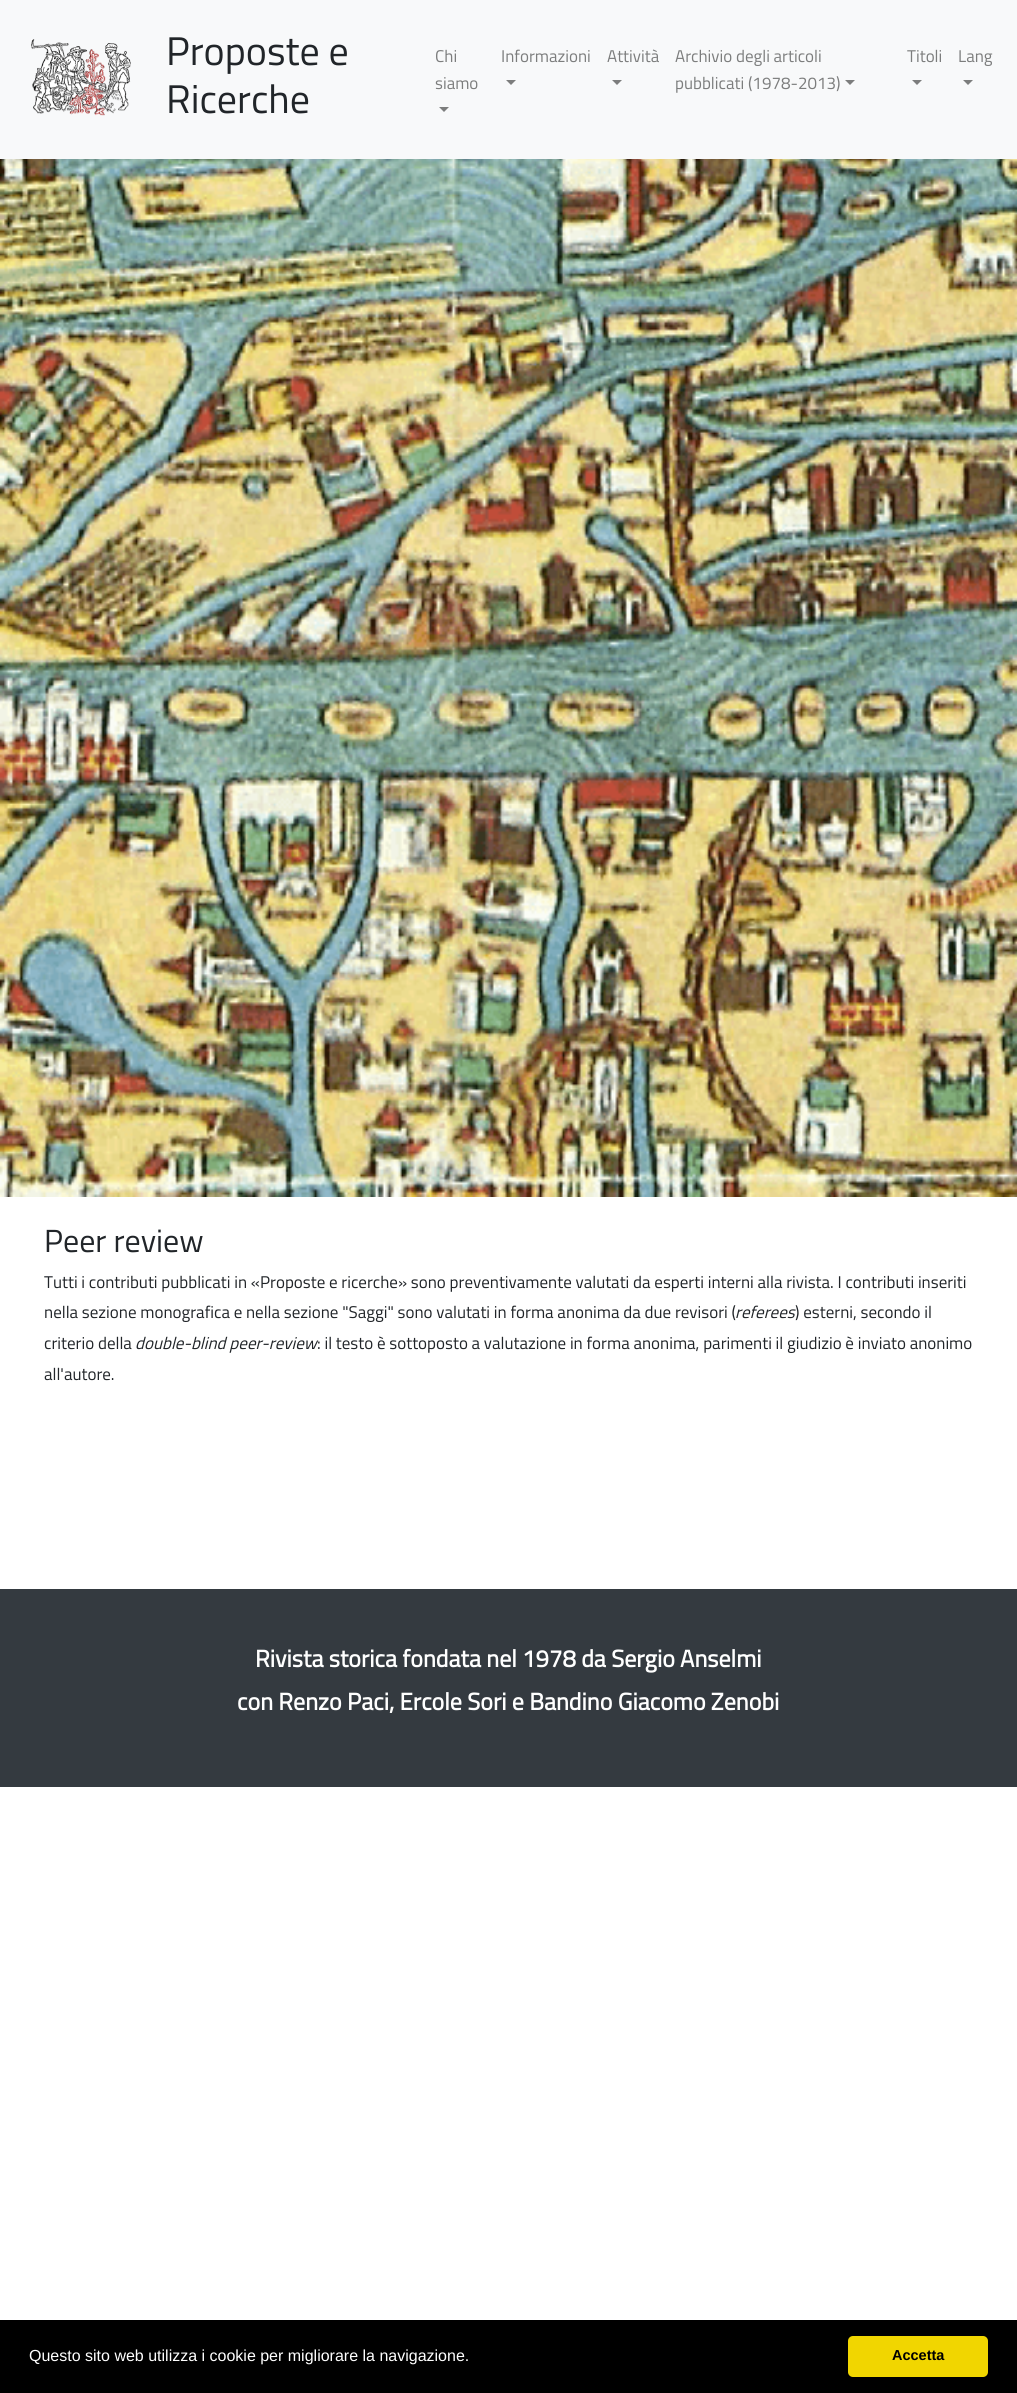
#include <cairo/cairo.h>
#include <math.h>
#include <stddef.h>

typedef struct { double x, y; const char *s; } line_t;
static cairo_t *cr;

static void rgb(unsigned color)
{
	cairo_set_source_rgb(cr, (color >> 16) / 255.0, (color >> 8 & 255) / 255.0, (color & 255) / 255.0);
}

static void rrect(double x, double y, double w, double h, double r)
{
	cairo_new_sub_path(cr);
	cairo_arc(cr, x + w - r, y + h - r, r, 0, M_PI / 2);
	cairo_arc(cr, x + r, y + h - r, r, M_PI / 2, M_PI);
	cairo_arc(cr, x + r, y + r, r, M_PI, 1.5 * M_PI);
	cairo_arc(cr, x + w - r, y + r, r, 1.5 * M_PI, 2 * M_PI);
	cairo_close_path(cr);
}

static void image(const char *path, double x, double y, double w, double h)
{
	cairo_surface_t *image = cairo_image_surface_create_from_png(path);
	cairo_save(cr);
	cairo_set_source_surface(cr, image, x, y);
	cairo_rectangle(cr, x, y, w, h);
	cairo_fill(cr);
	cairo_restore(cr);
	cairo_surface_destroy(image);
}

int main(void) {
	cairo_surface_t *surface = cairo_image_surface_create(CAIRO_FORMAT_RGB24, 1017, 2393);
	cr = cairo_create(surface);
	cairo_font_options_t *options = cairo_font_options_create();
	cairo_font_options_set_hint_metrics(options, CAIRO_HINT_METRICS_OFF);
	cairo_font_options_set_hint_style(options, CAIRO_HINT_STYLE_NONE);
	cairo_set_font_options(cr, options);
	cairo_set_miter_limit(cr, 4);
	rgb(0xffffff);
	cairo_paint(cr);
	rgb(0xf8f9fa);
	cairo_rectangle(cr, 0, 0, 1017, 159);
	cairo_fill(cr);
	image("img/1.png", 31, 39, 100, 77);
	rgb(0x7c7d7d);
	cairo_new_path(cr);
	cairo_move_to(cr, 439, 107);
	cairo_line_to(cr, 449, 107);
	cairo_line_to(cr, 444, 112);
	cairo_close_path(cr);
	cairo_fill(cr);
	cairo_new_path(cr);
	cairo_move_to(cr, 506, 80);
	cairo_line_to(cr, 516, 80);
	cairo_line_to(cr, 511, 85);
	cairo_close_path(cr);
	cairo_fill(cr);
	cairo_new_path(cr);
	cairo_move_to(cr, 612, 80);
	cairo_line_to(cr, 622, 80);
	cairo_line_to(cr, 617, 85);
	cairo_close_path(cr);
	cairo_fill(cr);
	cairo_new_path(cr);
	cairo_move_to(cr, 845, 80);
	cairo_line_to(cr, 855, 80);
	cairo_line_to(cr, 850, 85);
	cairo_close_path(cr);
	cairo_fill(cr);
	cairo_new_path(cr);
	cairo_move_to(cr, 912, 80);
	cairo_line_to(cr, 922, 80);
	cairo_line_to(cr, 917, 85);
	cairo_close_path(cr);
	cairo_fill(cr);
	cairo_new_path(cr);
	cairo_move_to(cr, 963, 80);
	cairo_line_to(cr, 973, 80);
	cairo_line_to(cr, 968, 85);
	cairo_close_path(cr);
	cairo_fill(cr);
	image("img/2.png", 0, 159, 1017, 1038);
	rgb(0x343a40);
	cairo_rectangle(cr, 0, 1589, 1017, 198);
	cairo_fill(cr);
	rgb(0x000000);
	cairo_rectangle(cr, 0, 2320, 1017, 73);
	cairo_fill(cr);
	rgb(0xf1d600);
	rrect(848, 2336, 140, 41, 5);
	cairo_fill(cr);
	cairo_select_font_face(cr, "Titillium Web", CAIRO_FONT_SLANT_NORMAL, CAIRO_FONT_WEIGHT_NORMAL);
	cairo_set_font_size(cr, 40);
	rgb(0x212529);
	cairo_move_to(cr, 166, 65);
	cairo_show_text(cr, "Proposte e");
	cairo_move_to(cr, 166, 113);
	cairo_show_text(cr, "Ricerche");
	cairo_set_font_size(cr, 17);
	rgb(0x7c7d7d);
	{
		static const line_t items[] = {
			{435, 62, "Chi"},
			{435, 89, "siamo"},
			{501, 62, "Informazioni"},
			{607, 62, "Attività"},
			{675, 62, "Archivio degli articoli"},
			{675, 89, "pubblicati (1978-2013)"},
			{907, 62, "Titoli"},
			{958, 62, "Lang"},
		};
		for (size_t i = 0; i < sizeof items / sizeof *items; i++) {
			cairo_move_to(cr, items[i].x, items[i].y);
			cairo_show_text(cr, items[i].s);
		}
	}
	cairo_set_font_size(cr, 32);
	rgb(0x212529);
	cairo_move_to(cr, 44, 1252);
	cairo_show_text(cr, "Peer review");
	cairo_set_font_size(cr, 17);
	cairo_move_to(cr, 44, 1288);
	cairo_show_text(cr, "Tutti i contributi pubblicati in «Proposte e ricerche» sono preventivamente valutati da esperti interni alla rivista. I contributi inseriti");
	cairo_move_to(cr, 44, 1318);
	cairo_show_text(cr, "nella sezione monografica e nella sezione \"Saggi\" sono valutati in forma anonima da due revisori (");
	cairo_select_font_face(cr, "Titillium Web", CAIRO_FONT_SLANT_ITALIC, CAIRO_FONT_WEIGHT_NORMAL);
	cairo_move_to(cr, 735, 1318);
	cairo_show_text(cr, "referees");
	cairo_select_font_face(cr, "Titillium Web", CAIRO_FONT_SLANT_NORMAL, CAIRO_FONT_WEIGHT_NORMAL);
	cairo_move_to(cr, 795, 1318);
	cairo_show_text(cr, ") esterni, secondo il");
	cairo_move_to(cr, 44, 1349);
	cairo_show_text(cr, "criterio della");
	cairo_select_font_face(cr, "Titillium Web", CAIRO_FONT_SLANT_ITALIC, CAIRO_FONT_WEIGHT_NORMAL);
	cairo_move_to(cr, 135, 1349);
	cairo_show_text(cr, "double-blind peer-review");
	cairo_select_font_face(cr, "Titillium Web", CAIRO_FONT_SLANT_NORMAL, CAIRO_FONT_WEIGHT_NORMAL);
	cairo_move_to(cr, 317, 1349);
	cairo_show_text(cr, ": il testo è sottoposto a valutazione in forma anonima, parimenti il giudizio è inviato anonimo");
	cairo_move_to(cr, 44, 1380);
	cairo_show_text(cr, "all'autore.");
	cairo_select_font_face(cr, "Titillium Web", CAIRO_FONT_SLANT_NORMAL, CAIRO_FONT_WEIGHT_BOLD);
	cairo_set_font_size(cr, 24);
	rgb(0xffffff);
	cairo_move_to(cr, 255, 1667);
	cairo_show_text(cr, "Rivista storica fondata nel 1978 da Sergio Anselmi");
	cairo_move_to(cr, 237, 1710);
	cairo_show_text(cr, "con Renzo Paci, Ercole Sori e Bandino Giacomo Zenobi");
	cairo_select_font_face(cr, "Liberation Sans", CAIRO_FONT_SLANT_NORMAL, CAIRO_FONT_WEIGHT_NORMAL);
	cairo_set_font_size(cr, 16);
	cairo_move_to(cr, 29, 2361);
	cairo_show_text(cr, "Questo sito web utilizza i cookie per migliorare la navigazione.");
	cairo_select_font_face(cr, "Liberation Sans", CAIRO_FONT_SLANT_NORMAL, CAIRO_FONT_WEIGHT_BOLD);
	cairo_set_font_size(cr, 14.5);
	rgb(0x000000);
	cairo_move_to(cr, 892, 2360);
	cairo_show_text(cr, "Accetta");
	cairo_surface_write_to_png(surface, "page.png");
	cairo_font_options_destroy(options);
	cairo_destroy(cr);
	cairo_surface_destroy(surface);
	return 0;
}
